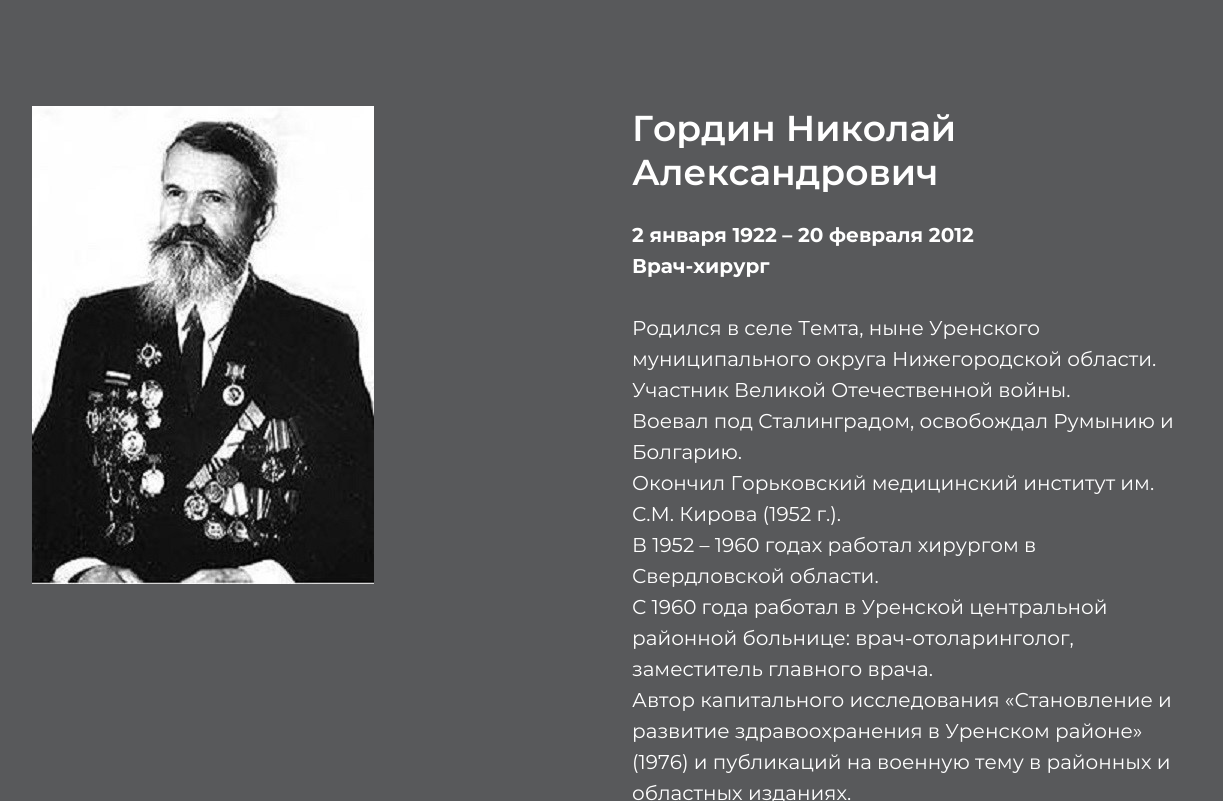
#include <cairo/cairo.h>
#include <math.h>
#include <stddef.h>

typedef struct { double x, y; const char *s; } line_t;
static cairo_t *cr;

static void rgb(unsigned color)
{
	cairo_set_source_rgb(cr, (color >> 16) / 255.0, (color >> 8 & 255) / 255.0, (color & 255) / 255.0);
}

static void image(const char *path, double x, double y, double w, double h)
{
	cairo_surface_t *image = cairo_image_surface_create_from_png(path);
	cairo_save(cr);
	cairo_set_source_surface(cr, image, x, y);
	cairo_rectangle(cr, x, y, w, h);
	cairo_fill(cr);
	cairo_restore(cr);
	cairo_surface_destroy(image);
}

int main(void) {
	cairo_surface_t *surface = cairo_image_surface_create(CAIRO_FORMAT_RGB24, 1223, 801);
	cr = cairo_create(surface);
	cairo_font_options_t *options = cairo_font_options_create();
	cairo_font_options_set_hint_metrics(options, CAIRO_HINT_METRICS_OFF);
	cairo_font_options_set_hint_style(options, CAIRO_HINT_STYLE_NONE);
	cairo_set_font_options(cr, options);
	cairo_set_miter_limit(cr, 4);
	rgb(0x58595b);
	cairo_paint(cr);
	image("img/1.png", 32, 106, 342, 478);
	cairo_select_font_face(cr, "Montserrat SemiBold", CAIRO_FONT_SLANT_NORMAL, CAIRO_FONT_WEIGHT_NORMAL);
	cairo_set_font_size(cr, 36);
	rgb(0xffffff);
	cairo_move_to(cr, 632, 141);
	cairo_show_text(cr, "Гордин Николай");
	cairo_move_to(cr, 632, 185);
	cairo_show_text(cr, "Александрович");
	cairo_select_font_face(cr, "Montserrat", CAIRO_FONT_SLANT_NORMAL, CAIRO_FONT_WEIGHT_BOLD);
	cairo_set_font_size(cr, 20);
	cairo_move_to(cr, 632, 242);
	cairo_show_text(cr, "2 января 1922 – 20 февраля 2012");
	cairo_move_to(cr, 632, 273);
	cairo_show_text(cr, "Врач-хирург");
	cairo_select_font_face(cr, "Montserrat", CAIRO_FONT_SLANT_NORMAL, CAIRO_FONT_WEIGHT_NORMAL);
	{
		static const line_t items[] = {
			{632, 335, "Родился в селе Темта, ныне Уренского"},
			{632, 366, "муниципального округа Нижегородской области."},
			{632, 397, "Участник Великой Отечественной войны."},
			{632, 428, "Воевал под Сталинградом, освобождал Румынию и"},
			{632, 459, "Болгарию."},
			{632, 490, "Окончил Горьковский медицинский институт им."},
			{632, 521, "С.М. Кирова (1952 г.)."},
			{632, 552, "В 1952 – 1960 годах работал хирургом в"},
			{632, 583, "Свердловской области."},
			{632, 614, "С 1960 года работал в Уренской центральной"},
			{632, 645, "районной больнице: врач-отоларинголог,"},
			{632, 676, "заместитель главного врача."},
			{632, 707, "Автор капитального исследования «Становление и"},
			{632, 738, "развитие здравоохранения в Уренском районе»"},
			{632, 769, "(1976) и публикаций на военную тему в районных и"},
			{632, 800, "областных изданиях."},
		};
		for (size_t i = 0; i < sizeof items / sizeof *items; i++) {
			cairo_move_to(cr, items[i].x, items[i].y);
			cairo_show_text(cr, items[i].s);
		}
	}
	cairo_surface_write_to_png(surface, "page.png");
	cairo_font_options_destroy(options);
	cairo_destroy(cr);
	cairo_surface_destroy(surface);
	return 0;
}
